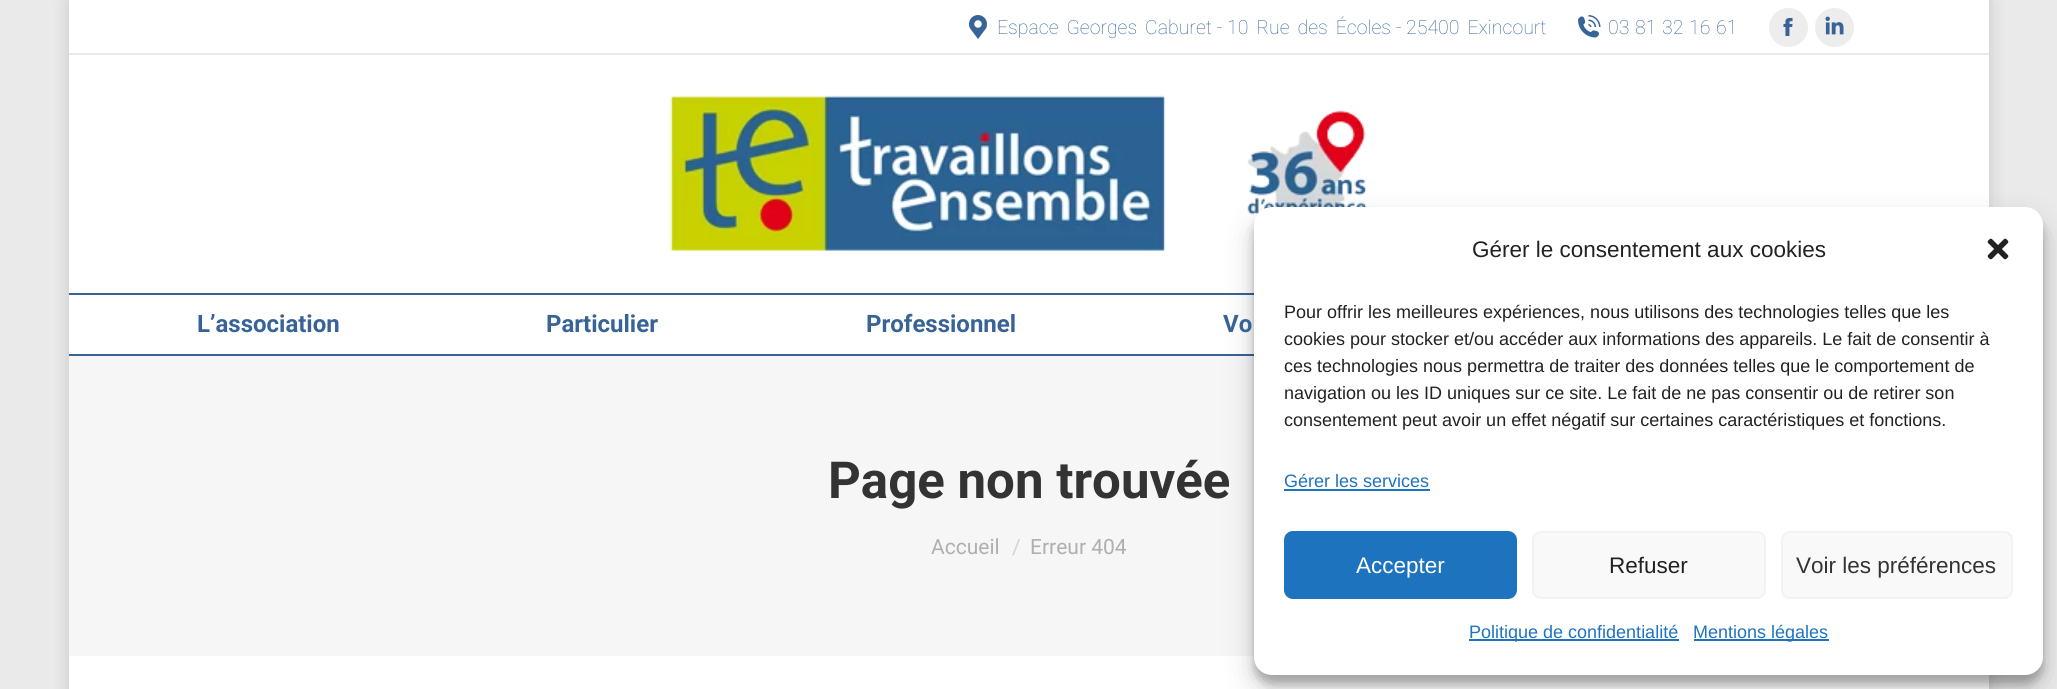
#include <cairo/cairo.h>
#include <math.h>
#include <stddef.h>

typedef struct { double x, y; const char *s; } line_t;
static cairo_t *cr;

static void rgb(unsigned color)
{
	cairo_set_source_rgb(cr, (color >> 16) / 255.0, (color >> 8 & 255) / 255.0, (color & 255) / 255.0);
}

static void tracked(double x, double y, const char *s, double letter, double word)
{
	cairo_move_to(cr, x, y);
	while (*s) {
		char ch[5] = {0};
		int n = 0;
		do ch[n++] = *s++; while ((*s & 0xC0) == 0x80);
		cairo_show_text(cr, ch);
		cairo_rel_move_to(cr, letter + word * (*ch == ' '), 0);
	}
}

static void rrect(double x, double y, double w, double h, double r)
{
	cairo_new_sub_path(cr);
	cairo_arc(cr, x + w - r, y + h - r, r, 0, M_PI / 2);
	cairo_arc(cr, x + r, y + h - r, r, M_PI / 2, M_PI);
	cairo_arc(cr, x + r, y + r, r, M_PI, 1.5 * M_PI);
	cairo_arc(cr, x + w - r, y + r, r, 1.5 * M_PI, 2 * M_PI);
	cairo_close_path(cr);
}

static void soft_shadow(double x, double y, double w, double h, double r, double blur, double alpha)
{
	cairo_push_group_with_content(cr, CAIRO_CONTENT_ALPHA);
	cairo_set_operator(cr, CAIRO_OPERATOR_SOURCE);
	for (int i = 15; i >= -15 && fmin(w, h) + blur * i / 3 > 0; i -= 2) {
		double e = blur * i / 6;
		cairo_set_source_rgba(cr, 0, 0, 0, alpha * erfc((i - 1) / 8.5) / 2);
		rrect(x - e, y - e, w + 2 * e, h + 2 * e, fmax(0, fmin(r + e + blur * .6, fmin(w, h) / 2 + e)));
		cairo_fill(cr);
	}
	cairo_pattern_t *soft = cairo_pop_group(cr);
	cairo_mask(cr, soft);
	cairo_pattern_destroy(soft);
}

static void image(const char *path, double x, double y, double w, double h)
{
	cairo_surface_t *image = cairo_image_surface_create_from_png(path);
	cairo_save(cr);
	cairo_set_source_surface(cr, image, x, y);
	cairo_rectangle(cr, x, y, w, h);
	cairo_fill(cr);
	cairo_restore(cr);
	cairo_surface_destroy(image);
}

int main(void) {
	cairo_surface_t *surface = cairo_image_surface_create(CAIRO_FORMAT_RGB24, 2057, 689);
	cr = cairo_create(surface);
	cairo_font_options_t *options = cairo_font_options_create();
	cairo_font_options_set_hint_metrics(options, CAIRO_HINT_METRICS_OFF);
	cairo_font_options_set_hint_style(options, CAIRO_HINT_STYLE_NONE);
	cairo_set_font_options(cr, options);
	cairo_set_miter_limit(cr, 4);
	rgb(0xeaeaea);
	cairo_paint(cr);
	rgb(0x000000);
	soft_shadow(69, 0, 1920, 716, 0, 9, 0.15);
	rgb(0xffffff);
	cairo_rectangle(cr, 69, 0, 1920, 689);
	cairo_fill(cr);
	rgb(0x376397);
	cairo_rectangle(cr, 69, 354, 1185, 2);
	cairo_fill(cr);
	image("img/1.png", 969, 15, 18, 24);
	image("img/2.png", 1578, 15, 23, 23);
	rgb(0xededed);
	cairo_arc(cr, 1788.5, 27.5, 19.5, 0, 2 * M_PI);
	cairo_fill(cr);
	image("img/3.png", 1783, 18, 10, 18);
	cairo_arc(cr, 1834.5, 27.5, 19.5, 0, 2 * M_PI);
	cairo_fill(cr);
	image("img/4.png", 1825, 16, 19, 19);
	rgb(0xe9e9e9);
	cairo_rectangle(cr, 69, 53, 1920, 2);
	cairo_fill(cr);
	image("img/5.png", 670, 95, 697, 157);
	rgb(0x376397);
	cairo_rectangle(cr, 69, 293, 1185, 2);
	cairo_fill(cr);
	rgb(0xf6f6f6);
	cairo_rectangle(cr, 69, 356, 1185, 300);
	cairo_fill(cr);
	rgb(0x000000);
	soft_shadow(1254, 216, 789, 468, 18, 4.5, 0.23);
	soft_shadow(1254, 222, 789, 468, 18, 15, 0.19);
	rgb(0xffffff);
	rrect(1254, 207, 789, 468, 18);
	cairo_fill(cr);
	image("img/6.png", 1987, 238, 22, 22);
	rgb(0x1e73be);
	cairo_rectangle(cr, 1284, 489, 146, 2);
	cairo_fill(cr);
	rrect(1285, 532, 231, 66, 8);
	cairo_fill_preserve(cr);
	cairo_stroke(cr);
	rgb(0xf9f9f9);
	rrect(1533, 532, 232, 66, 8);
	cairo_fill_preserve(cr);
	rgb(0xf2f2f2);
	cairo_stroke(cr);
	rgb(0xf9f9f9);
	rrect(1782, 532, 230, 66, 8);
	cairo_fill_preserve(cr);
	rgb(0xf2f2f2);
	cairo_stroke(cr);
	rgb(0x1e73be);
	cairo_rectangle(cr, 1469, 639, 210, 2);
	cairo_fill(cr);
	cairo_rectangle(cr, 1694, 639, 135, 2);
	cairo_fill(cr);
	cairo_select_font_face(cr, "Roboto Thin", CAIRO_FONT_SLANT_NORMAL, CAIRO_FONT_WEIGHT_NORMAL);
	cairo_set_font_size(cr, 19.5);
	rgb(0x376397);
	cairo_move_to(cr, 997, 34);
	cairo_show_text(cr, "Espace  Georges  Caburet - 10  Rue  des  Écoles - 25400  Exincourt");
	tracked(1608, 34, "03 81 32 16 61", 0, 1);
	cairo_select_font_face(cr, "Roboto", CAIRO_FONT_SLANT_NORMAL, CAIRO_FONT_WEIGHT_BOLD);
	cairo_set_font_size(cr, 24);
	{
		static const line_t items[] = {
			{197, 332, "L’association"},
			{546, 332, "Particulier"},
			{866, 332, "Professionnel"},
			{1223, 332, "Vo"},
		};
		for (size_t i = 0; i < sizeof items / sizeof *items; i++) {
			cairo_move_to(cr, items[i].x, items[i].y);
			cairo_show_text(cr, items[i].s);
		}
	}
	cairo_set_font_size(cr, 51);
	rgb(0x333333);
	cairo_move_to(cr, 828, 498);
	cairo_show_text(cr, "Page non trouvée");
	cairo_select_font_face(cr, "Roboto", CAIRO_FONT_SLANT_NORMAL, CAIRO_FONT_WEIGHT_NORMAL);
	cairo_set_font_size(cr, 21);
	rgb(0xadafb3);
	cairo_move_to(cr, 931, 554);
	cairo_show_text(cr, "Accueil");
	rgb(0xd2d3d5);
	cairo_move_to(cr, 1012, 554);
	cairo_show_text(cr, "/");
	rgb(0xadafb3);
	cairo_move_to(cr, 1030, 554);
	cairo_show_text(cr, "Erreur 404");
	cairo_select_font_face(cr, "Liberation Sans", CAIRO_FONT_SLANT_NORMAL, CAIRO_FONT_WEIGHT_NORMAL);
	cairo_set_font_size(cr, 22.5);
	rgb(0x222222);
	cairo_move_to(cr, 1472, 257);
	cairo_show_text(cr, "Gérer le consentement aux cookies");
	cairo_set_font_size(cr, 18);
	{
		static const line_t items[] = {
			{1284, 318, "Pour offrir les meilleures expériences, nous utilisons des technologies telles que les"},
			{1284, 345, "cookies pour stocker et/ou accéder aux informations des appareils. Le fait de consentir à"},
			{1284, 372, "ces technologies nous permettra de traiter des données telles que le comportement de"},
			{1284, 399, "navigation ou les ID uniques sur ce site. Le fait de ne pas consentir ou de retirer son"},
			{1284, 426, "consentement peut avoir un effet négatif sur certaines caractéristiques et fonctions."},
		};
		for (size_t i = 0; i < sizeof items / sizeof *items; i++) {
			cairo_move_to(cr, items[i].x, items[i].y);
			cairo_show_text(cr, items[i].s);
		}
	}
	rgb(0x1e73be);
	cairo_move_to(cr, 1284, 487);
	cairo_show_text(cr, "Gérer les services");
	cairo_set_font_size(cr, 22.5);
	rgb(0xffffff);
	cairo_move_to(cr, 1356, 573);
	cairo_show_text(cr, "Accepter");
	rgb(0x222222);
	cairo_move_to(cr, 1609, 573);
	cairo_show_text(cr, "Refuser");
	rgb(0x333333);
	cairo_move_to(cr, 1796, 573);
	cairo_show_text(cr, "Voir les préférences");
	cairo_set_font_size(cr, 18);
	rgb(0x1e73be);
	cairo_move_to(cr, 1469, 638);
	cairo_show_text(cr, "Politique de confidentialité");
	cairo_move_to(cr, 1693, 638);
	cairo_show_text(cr, "Mentions légales");
	cairo_surface_write_to_png(surface, "page.png");
	cairo_font_options_destroy(options);
	cairo_destroy(cr);
	cairo_surface_destroy(surface);
	return 0;
}
